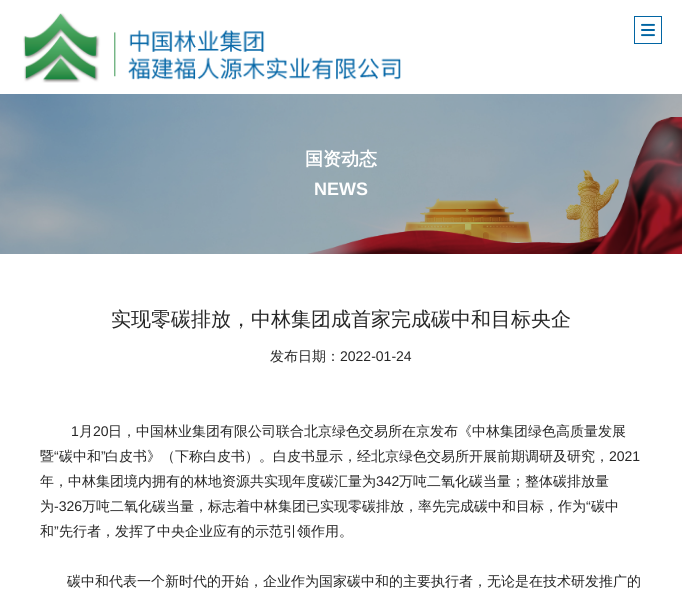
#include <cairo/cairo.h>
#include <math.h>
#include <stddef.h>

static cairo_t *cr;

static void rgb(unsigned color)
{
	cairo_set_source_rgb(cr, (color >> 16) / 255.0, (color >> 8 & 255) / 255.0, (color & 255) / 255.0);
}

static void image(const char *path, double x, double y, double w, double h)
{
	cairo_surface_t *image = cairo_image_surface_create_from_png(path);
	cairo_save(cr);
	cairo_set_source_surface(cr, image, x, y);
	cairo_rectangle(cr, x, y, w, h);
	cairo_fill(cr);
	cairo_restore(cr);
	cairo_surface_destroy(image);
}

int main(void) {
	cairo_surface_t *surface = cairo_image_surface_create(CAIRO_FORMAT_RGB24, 682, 591);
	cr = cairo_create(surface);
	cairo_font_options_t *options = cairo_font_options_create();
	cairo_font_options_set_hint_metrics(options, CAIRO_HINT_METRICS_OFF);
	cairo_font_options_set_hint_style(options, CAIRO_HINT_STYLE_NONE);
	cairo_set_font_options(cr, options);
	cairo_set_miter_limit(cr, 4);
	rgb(0xffffff);
	cairo_paint(cr);
	image("img/1.png", 23, 13, 378, 70);
	cairo_rectangle(cr, 634.5, 16.5, 27, 27);
	rgb(0x0165a3);
	cairo_set_line_width(cr, 1);
	cairo_stroke(cr);
	image("img/2.png", 641, 23, 14, 14);
	image("img/3.png", 0, 94, 682, 160);
	cairo_select_font_face(cr, "WenQuanYi Zen Hei", CAIRO_FONT_SLANT_NORMAL, CAIRO_FONT_WEIGHT_BOLD);
	cairo_set_font_size(cr, 18);
	rgb(0xffffff);
	cairo_move_to(cr, 305, 165);
	cairo_show_text(cr, "国资动态");
	cairo_select_font_face(cr, "Liberation Sans", CAIRO_FONT_SLANT_NORMAL, CAIRO_FONT_WEIGHT_BOLD);
	cairo_move_to(cr, 314, 195);
	cairo_show_text(cr, "NEWS");
	cairo_select_font_face(cr, "WenQuanYi Zen Hei Medium", CAIRO_FONT_SLANT_NORMAL, CAIRO_FONT_WEIGHT_NORMAL);
	cairo_set_font_size(cr, 20);
	rgb(0x262626);
	cairo_move_to(cr, 111, 326);
	cairo_show_text(cr, "实现零碳排放，中林集团成首家完成碳中和目标央企");
	cairo_set_font_size(cr, 14);
	cairo_move_to(cr, 270, 361);
	cairo_show_text(cr, "发布日期：");
	cairo_select_font_face(cr, "Liberation Sans", CAIRO_FONT_SLANT_NORMAL, CAIRO_FONT_WEIGHT_NORMAL);
	cairo_move_to(cr, 340, 361);
	cairo_show_text(cr, "2022-01-24");
	cairo_move_to(cr, 71, 436);
	cairo_show_text(cr, "1");
	cairo_select_font_face(cr, "WenQuanYi Zen Hei Medium", CAIRO_FONT_SLANT_NORMAL, CAIRO_FONT_WEIGHT_NORMAL);
	cairo_move_to(cr, 79, 436);
	cairo_show_text(cr, "月");
	cairo_select_font_face(cr, "Liberation Sans", CAIRO_FONT_SLANT_NORMAL, CAIRO_FONT_WEIGHT_NORMAL);
	cairo_move_to(cr, 93, 436);
	cairo_show_text(cr, "20");
	cairo_select_font_face(cr, "WenQuanYi Zen Hei Medium", CAIRO_FONT_SLANT_NORMAL, CAIRO_FONT_WEIGHT_NORMAL);
	cairo_move_to(cr, 108, 436);
	cairo_show_text(cr, "日，中国林业集团有限公司联合北京绿色交易所在京发布《中林集团绿色高质量发展");
	cairo_move_to(cr, 40, 461);
	cairo_show_text(cr, "暨");
	cairo_select_font_face(cr, "Liberation Sans", CAIRO_FONT_SLANT_NORMAL, CAIRO_FONT_WEIGHT_NORMAL);
	cairo_move_to(cr, 54, 461);
	cairo_show_text(cr, "“");
	cairo_select_font_face(cr, "WenQuanYi Zen Hei Medium", CAIRO_FONT_SLANT_NORMAL, CAIRO_FONT_WEIGHT_NORMAL);
	cairo_move_to(cr, 59, 461);
	cairo_show_text(cr, "碳中和");
	cairo_select_font_face(cr, "Liberation Sans", CAIRO_FONT_SLANT_NORMAL, CAIRO_FONT_WEIGHT_NORMAL);
	cairo_move_to(cr, 101, 461);
	cairo_show_text(cr, "”");
	cairo_select_font_face(cr, "WenQuanYi Zen Hei Medium", CAIRO_FONT_SLANT_NORMAL, CAIRO_FONT_WEIGHT_NORMAL);
	cairo_move_to(cr, 105, 461);
	cairo_show_text(cr, "白皮书》（下称白皮书）。白皮书显示，经北京绿色交易所开展前期调研及研究，");
	cairo_select_font_face(cr, "Liberation Sans", CAIRO_FONT_SLANT_NORMAL, CAIRO_FONT_WEIGHT_NORMAL);
	cairo_move_to(cr, 609, 461);
	cairo_show_text(cr, "2021");
	cairo_select_font_face(cr, "WenQuanYi Zen Hei Medium", CAIRO_FONT_SLANT_NORMAL, CAIRO_FONT_WEIGHT_NORMAL);
	cairo_move_to(cr, 40, 486);
	cairo_show_text(cr, "年，中林集团境内拥有的林地资源共实现年度碳汇量为");
	cairo_select_font_face(cr, "Liberation Sans", CAIRO_FONT_SLANT_NORMAL, CAIRO_FONT_WEIGHT_NORMAL);
	cairo_move_to(cr, 376, 486);
	cairo_show_text(cr, "342");
	cairo_select_font_face(cr, "WenQuanYi Zen Hei Medium", CAIRO_FONT_SLANT_NORMAL, CAIRO_FONT_WEIGHT_NORMAL);
	cairo_move_to(cr, 399, 486);
	cairo_show_text(cr, "万吨二氧化碳当量；整体碳排放量");
	cairo_move_to(cr, 40, 511);
	cairo_show_text(cr, "为");
	cairo_select_font_face(cr, "Liberation Sans", CAIRO_FONT_SLANT_NORMAL, CAIRO_FONT_WEIGHT_NORMAL);
	cairo_move_to(cr, 54, 511);
	cairo_show_text(cr, "-326");
	cairo_select_font_face(cr, "WenQuanYi Zen Hei Medium", CAIRO_FONT_SLANT_NORMAL, CAIRO_FONT_WEIGHT_NORMAL);
	cairo_move_to(cr, 82, 511);
	cairo_show_text(cr, "万吨二氧化碳当量，标志着中林集团已实现零碳排放，率先完成碳中和目标，作为");
	cairo_select_font_face(cr, "Liberation Sans", CAIRO_FONT_SLANT_NORMAL, CAIRO_FONT_WEIGHT_NORMAL);
	cairo_move_to(cr, 586, 511);
	cairo_show_text(cr, "“");
	cairo_select_font_face(cr, "WenQuanYi Zen Hei Medium", CAIRO_FONT_SLANT_NORMAL, CAIRO_FONT_WEIGHT_NORMAL);
	cairo_move_to(cr, 591, 511);
	cairo_show_text(cr, "碳中");
	cairo_move_to(cr, 40, 536);
	cairo_show_text(cr, "和");
	cairo_select_font_face(cr, "Liberation Sans", CAIRO_FONT_SLANT_NORMAL, CAIRO_FONT_WEIGHT_NORMAL);
	cairo_move_to(cr, 54, 536);
	cairo_show_text(cr, "”");
	cairo_select_font_face(cr, "WenQuanYi Zen Hei Medium", CAIRO_FONT_SLANT_NORMAL, CAIRO_FONT_WEIGHT_NORMAL);
	cairo_move_to(cr, 59, 536);
	cairo_show_text(cr, "先行者，发挥了中央企业应有的示范引领作用。");
	cairo_move_to(cr, 67, 586);
	cairo_show_text(cr, "碳中和代表一个新时代的开始，企业作为国家碳中和的主要执行者，无论是在技术研发推广的");
	cairo_surface_write_to_png(surface, "page.png");
	cairo_font_options_destroy(options);
	cairo_destroy(cr);
	cairo_surface_destroy(surface);
	return 0;
}
